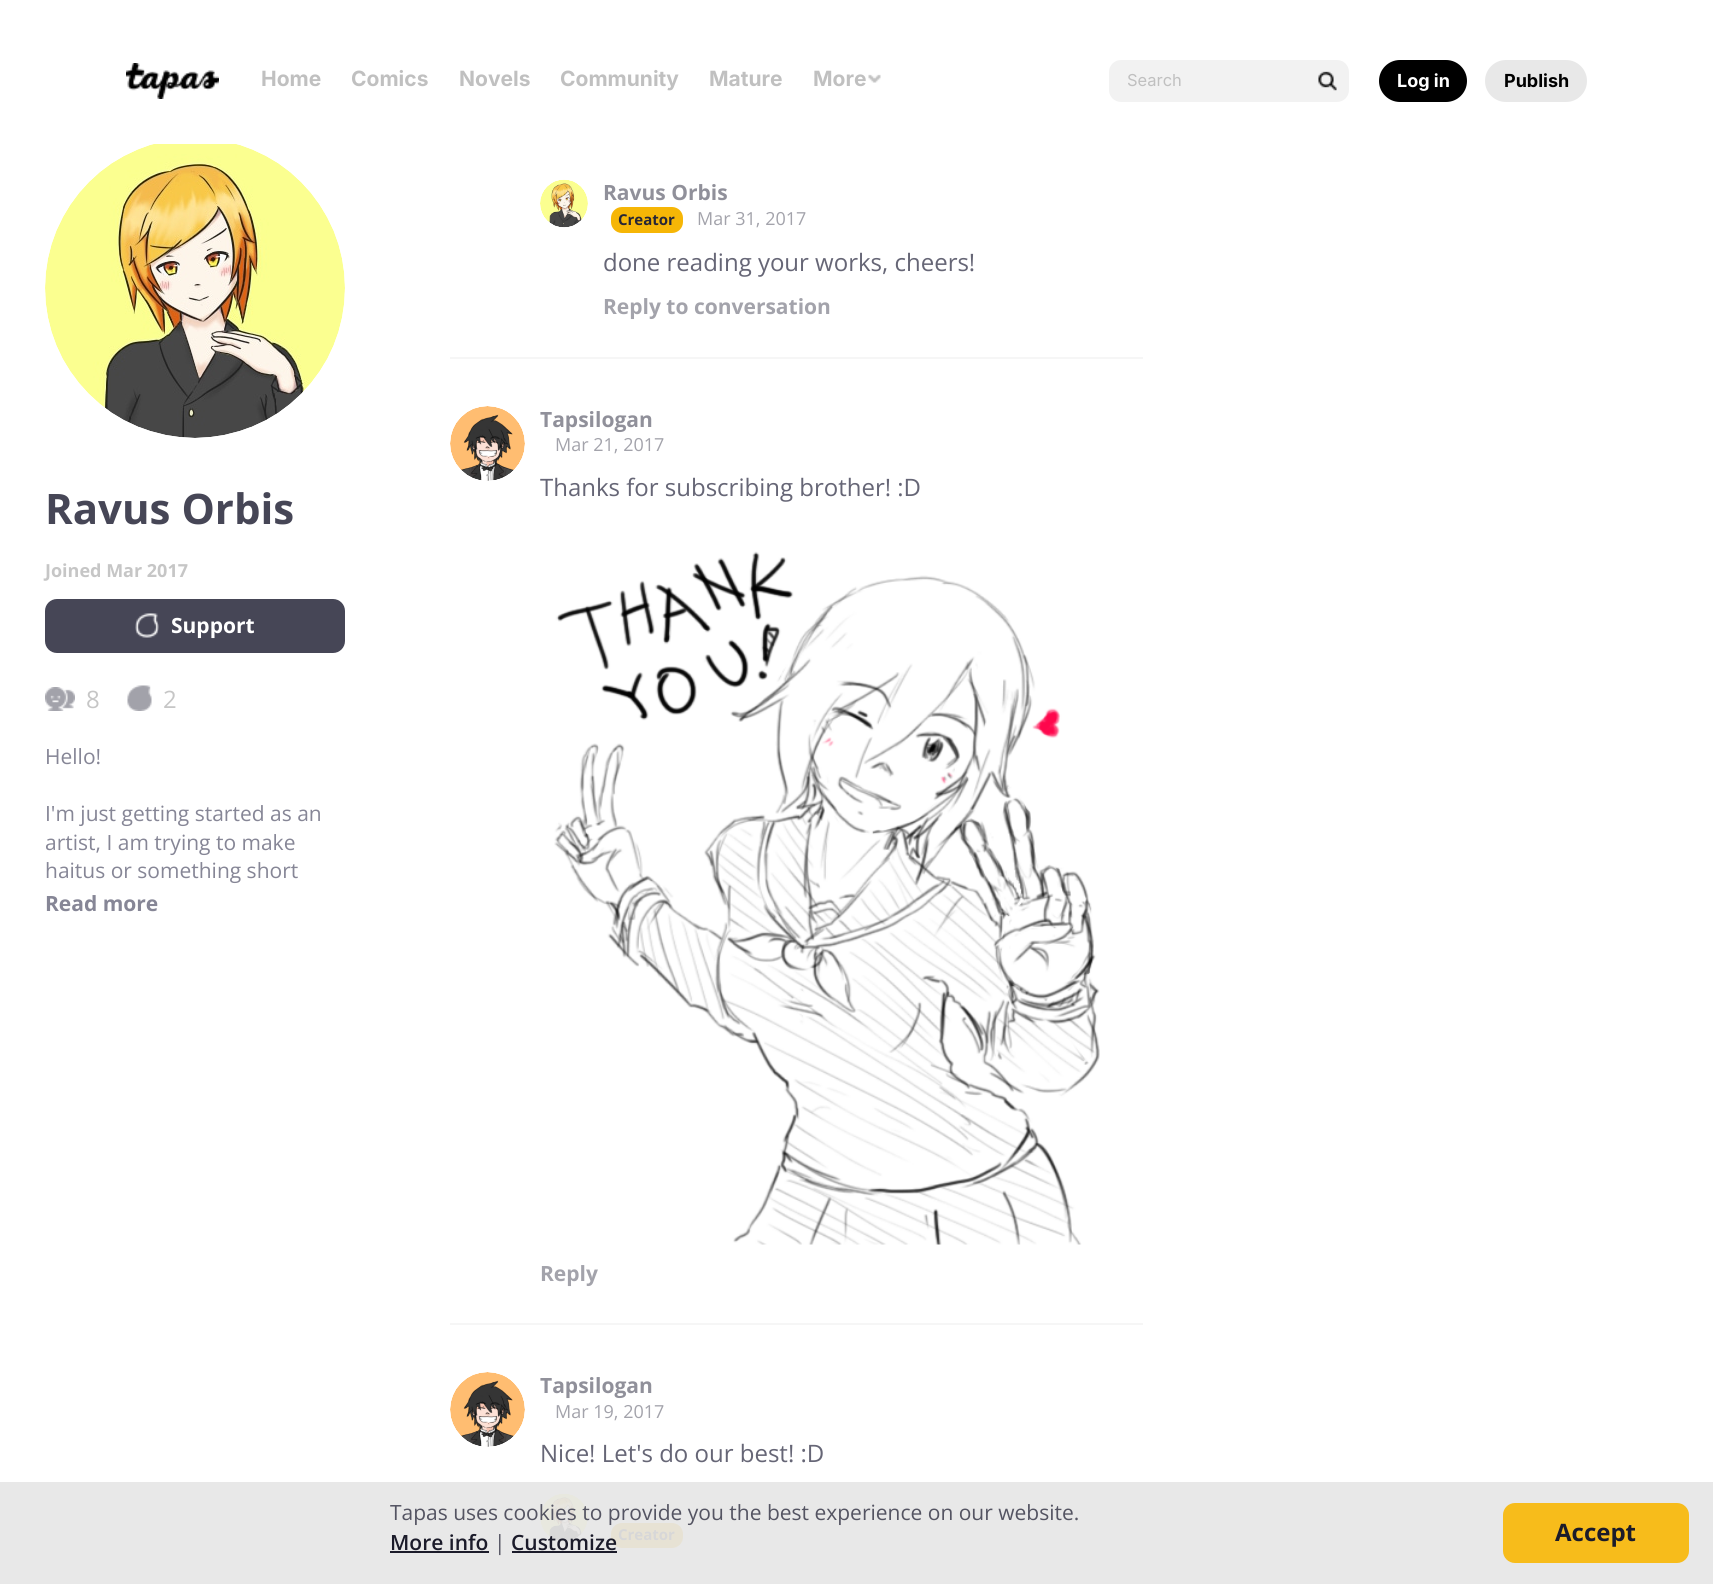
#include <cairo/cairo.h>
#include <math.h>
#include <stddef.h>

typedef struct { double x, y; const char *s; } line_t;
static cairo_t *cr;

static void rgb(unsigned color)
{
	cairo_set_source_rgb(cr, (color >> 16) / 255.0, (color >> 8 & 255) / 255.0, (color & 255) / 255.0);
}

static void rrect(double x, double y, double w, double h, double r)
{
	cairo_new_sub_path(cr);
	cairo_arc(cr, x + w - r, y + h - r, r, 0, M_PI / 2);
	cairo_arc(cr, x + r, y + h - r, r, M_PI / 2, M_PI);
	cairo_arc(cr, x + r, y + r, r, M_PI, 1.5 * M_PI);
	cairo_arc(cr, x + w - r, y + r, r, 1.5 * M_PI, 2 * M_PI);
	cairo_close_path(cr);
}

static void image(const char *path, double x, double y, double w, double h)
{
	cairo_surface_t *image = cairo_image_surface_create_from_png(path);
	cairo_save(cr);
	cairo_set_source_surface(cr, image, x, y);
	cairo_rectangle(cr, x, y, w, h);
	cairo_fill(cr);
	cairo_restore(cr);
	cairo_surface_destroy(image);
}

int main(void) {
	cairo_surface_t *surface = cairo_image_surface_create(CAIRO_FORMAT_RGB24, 1713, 1584);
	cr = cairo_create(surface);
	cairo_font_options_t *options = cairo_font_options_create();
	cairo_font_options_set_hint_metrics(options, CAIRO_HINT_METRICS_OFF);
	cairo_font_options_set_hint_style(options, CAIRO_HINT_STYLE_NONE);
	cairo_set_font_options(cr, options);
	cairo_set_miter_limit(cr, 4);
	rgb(0xffffff);
	cairo_paint(cr);
	rgb(0xe8e8e8);
	cairo_rectangle(cr, 0, 1482, 1713, 102);
	cairo_fill(cr);
	image("img/1.png", 126, 63, 93, 36);
	image("img/2.png", 868, 74, 13, 9);
	rgb(0xf2f2f2);
	rrect(1109, 60, 240, 42, 12);
	cairo_fill(cr);
	image("img/3.png", 1318, 71, 19, 20);
	rgb(0x000000);
	rrect(1379, 60, 88, 42, 21);
	cairo_fill(cr);
	rgb(0xe8e8e8);
	rrect(1485, 60, 102, 42, 21);
	cairo_fill(cr);
	image("img/4.png", 45, 144, 300, 294);
	rgb(0x464656);
	rrect(45, 599, 300, 54, 12);
	cairo_fill(cr);
	image("img/5.png", 135, 613, 24, 25);
	image("img/6.png", 45, 687, 30, 24);
	image("img/7.png", 127, 685, 25, 26);
	image("img/8.png", 540, 179, 48, 49);
	rgb(0xf6b606);
	rrect(611, 207, 72, 26, 11);
	cairo_fill(cr);
	rgb(0xf6f6f6);
	cairo_rectangle(cr, 450, 357, 693, 2);
	cairo_fill(cr);
	image("img/9.png", 450, 406, 75, 75);
	image("img/10.png", 554, 551, 546, 694);
	cairo_rectangle(cr, 450, 1323, 693, 2);
	cairo_fill(cr);
	image("img/9.png", 450, 1372, 75, 75);
	image("img/11.png", 540, 1493, 48, 49);
	rgb(0xe7e2d4);
	rrect(611, 1523, 72, 25, 11);
	cairo_fill(cr);
	rgb(0x1b1b2a);
	cairo_rectangle(cr, 390, 1551, 99, 2);
	cairo_fill(cr);
	cairo_rectangle(cr, 512, 1551, 105, 2);
	cairo_fill(cr);
	rgb(0xf7bc1b);
	rrect(1503, 1503, 186, 60, 12);
	cairo_fill(cr);
	cairo_select_font_face(cr, "Inter", CAIRO_FONT_SLANT_NORMAL, CAIRO_FONT_WEIGHT_BOLD);
	cairo_set_font_size(cr, 21);
	rgb(0xc0c0c0);
	{
		static const line_t items[] = {
			{261, 86, "Home"},
			{351, 86, "Comics"},
			{459, 86, "Novels"},
			{560, 86, "Community"},
			{709, 86, "Mature"},
			{813, 86, "More"},
		};
		for (size_t i = 0; i < sizeof items / sizeof *items; i++) {
			cairo_move_to(cr, items[i].x, items[i].y);
			cairo_show_text(cr, items[i].s);
		}
	}
	cairo_select_font_face(cr, "Inter", CAIRO_FONT_SLANT_NORMAL, CAIRO_FONT_WEIGHT_NORMAL);
	cairo_set_font_size(cr, 16.5);
	cairo_move_to(cr, 1127, 86);
	cairo_show_text(cr, "Search");
	cairo_select_font_face(cr, "Inter", CAIRO_FONT_SLANT_NORMAL, CAIRO_FONT_WEIGHT_BOLD);
	cairo_set_font_size(cr, 18);
	rgb(0xffffff);
	cairo_move_to(cr, 1397, 87);
	cairo_show_text(cr, "Log in");
	rgb(0x000000);
	cairo_move_to(cr, 1504, 87);
	cairo_show_text(cr, "Publish");
	cairo_select_font_face(cr, "Open Sans", CAIRO_FONT_SLANT_NORMAL, CAIRO_FONT_WEIGHT_BOLD);
	cairo_set_font_size(cr, 42);
	rgb(0x464656);
	cairo_move_to(cr, 45, 524);
	cairo_show_text(cr, "Ravus Orbis");
	cairo_set_font_size(cr, 18);
	rgb(0xc6c6c6);
	cairo_move_to(cr, 45, 577);
	cairo_show_text(cr, "Joined Mar 2017");
	cairo_set_font_size(cr, 21);
	rgb(0xffffff);
	cairo_move_to(cr, 171, 633);
	cairo_show_text(cr, "Support");
	cairo_select_font_face(cr, "Open Sans", CAIRO_FONT_SLANT_NORMAL, CAIRO_FONT_WEIGHT_NORMAL);
	cairo_set_font_size(cr, 24);
	rgb(0xc6c6c6);
	cairo_move_to(cr, 86, 708);
	cairo_show_text(cr, "8");
	cairo_move_to(cr, 163, 708);
	cairo_show_text(cr, "2");
	cairo_set_font_size(cr, 21);
	rgb(0x868696);
	{
		static const line_t items[] = {
			{45, 764, "Hello!"},
			{45, 821, "I'm just getting started as an"},
			{45, 850, "artist, I am trying to make"},
			{45, 878, "haitus or something short"},
		};
		for (size_t i = 0; i < sizeof items / sizeof *items; i++) {
			cairo_move_to(cr, items[i].x, items[i].y);
			cairo_show_text(cr, items[i].s);
		}
	}
	cairo_select_font_face(cr, "Open Sans", CAIRO_FONT_SLANT_NORMAL, CAIRO_FONT_WEIGHT_BOLD);
	cairo_move_to(cr, 45, 911);
	cairo_show_text(cr, "Read more");
	rgb(0x90909a);
	cairo_move_to(cr, 603, 200);
	cairo_show_text(cr, "Ravus Orbis");
	cairo_set_font_size(cr, 15);
	rgb(0x262636);
	cairo_move_to(cr, 618, 225);
	cairo_show_text(cr, "Creator");
	cairo_select_font_face(cr, "Open Sans", CAIRO_FONT_SLANT_NORMAL, CAIRO_FONT_WEIGHT_NORMAL);
	cairo_set_font_size(cr, 18);
	rgb(0xa3a3ab);
	cairo_move_to(cr, 697, 225);
	cairo_show_text(cr, "Mar 31, 2017");
	cairo_set_font_size(cr, 24);
	rgb(0x666676);
	cairo_move_to(cr, 603, 271);
	cairo_show_text(cr, "done reading your works, cheers!");
	cairo_select_font_face(cr, "Open Sans", CAIRO_FONT_SLANT_NORMAL, CAIRO_FONT_WEIGHT_BOLD);
	cairo_set_font_size(cr, 21);
	rgb(0xa3a3ab);
	cairo_move_to(cr, 603, 314);
	cairo_show_text(cr, "Reply to conversation");
	rgb(0x90909a);
	cairo_move_to(cr, 540, 427);
	cairo_show_text(cr, "Tapsilogan");
	cairo_select_font_face(cr, "Open Sans", CAIRO_FONT_SLANT_NORMAL, CAIRO_FONT_WEIGHT_NORMAL);
	cairo_set_font_size(cr, 18);
	rgb(0xa3a3ab);
	cairo_move_to(cr, 555, 451);
	cairo_show_text(cr, "Mar 21, 2017");
	cairo_set_font_size(cr, 24);
	rgb(0x666676);
	cairo_move_to(cr, 540, 496);
	cairo_show_text(cr, "Thanks for subscribing brother! :D");
	cairo_select_font_face(cr, "Open Sans", CAIRO_FONT_SLANT_NORMAL, CAIRO_FONT_WEIGHT_BOLD);
	cairo_set_font_size(cr, 21);
	rgb(0xa3a3ab);
	cairo_move_to(cr, 540, 1281);
	cairo_show_text(cr, "Reply");
	rgb(0x90909a);
	cairo_move_to(cr, 540, 1393);
	cairo_show_text(cr, "Tapsilogan");
	cairo_select_font_face(cr, "Open Sans", CAIRO_FONT_SLANT_NORMAL, CAIRO_FONT_WEIGHT_NORMAL);
	cairo_set_font_size(cr, 18);
	rgb(0xa3a3ab);
	cairo_move_to(cr, 555, 1418);
	cairo_show_text(cr, "Mar 19, 2017");
	cairo_set_font_size(cr, 24);
	rgb(0x666676);
	cairo_move_to(cr, 540, 1462);
	cairo_show_text(cr, "Nice! Let's do our best! :D");
	cairo_select_font_face(cr, "Open Sans", CAIRO_FONT_SLANT_NORMAL, CAIRO_FONT_WEIGHT_BOLD);
	cairo_set_font_size(cr, 15);
	rgb(0xd7d7d8);
	cairo_move_to(cr, 618, 1540);
	cairo_show_text(cr, "Creator");
	cairo_select_font_face(cr, "Open Sans", CAIRO_FONT_SLANT_NORMAL, CAIRO_FONT_WEIGHT_NORMAL);
	cairo_set_font_size(cr, 21);
	rgb(0x545462);
	cairo_move_to(cr, 390, 1520);
	cairo_show_text(cr, "Tapas uses cookies to provide you the best experience on our website.");
	cairo_select_font_face(cr, "Open Sans SemiBold", CAIRO_FONT_SLANT_NORMAL, CAIRO_FONT_WEIGHT_NORMAL);
	rgb(0x1b1b2a);
	cairo_move_to(cr, 390, 1550);
	cairo_show_text(cr, "More info");
	cairo_select_font_face(cr, "Open Sans", CAIRO_FONT_SLANT_NORMAL, CAIRO_FONT_WEIGHT_NORMAL);
	rgb(0x545462);
	cairo_move_to(cr, 494, 1550);
	cairo_show_text(cr, "|");
	cairo_select_font_face(cr, "Open Sans SemiBold", CAIRO_FONT_SLANT_NORMAL, CAIRO_FONT_WEIGHT_NORMAL);
	rgb(0x1b1b2a);
	cairo_move_to(cr, 511, 1550);
	cairo_show_text(cr, "Customize");
	cairo_select_font_face(cr, "Open Sans", CAIRO_FONT_SLANT_NORMAL, CAIRO_FONT_WEIGHT_BOLD);
	cairo_set_font_size(cr, 24);
	cairo_move_to(cr, 1555, 1541);
	cairo_show_text(cr, "Accept");
	cairo_surface_write_to_png(surface, "page.png");
	cairo_font_options_destroy(options);
	cairo_destroy(cr);
	cairo_surface_destroy(surface);
	return 0;
}
